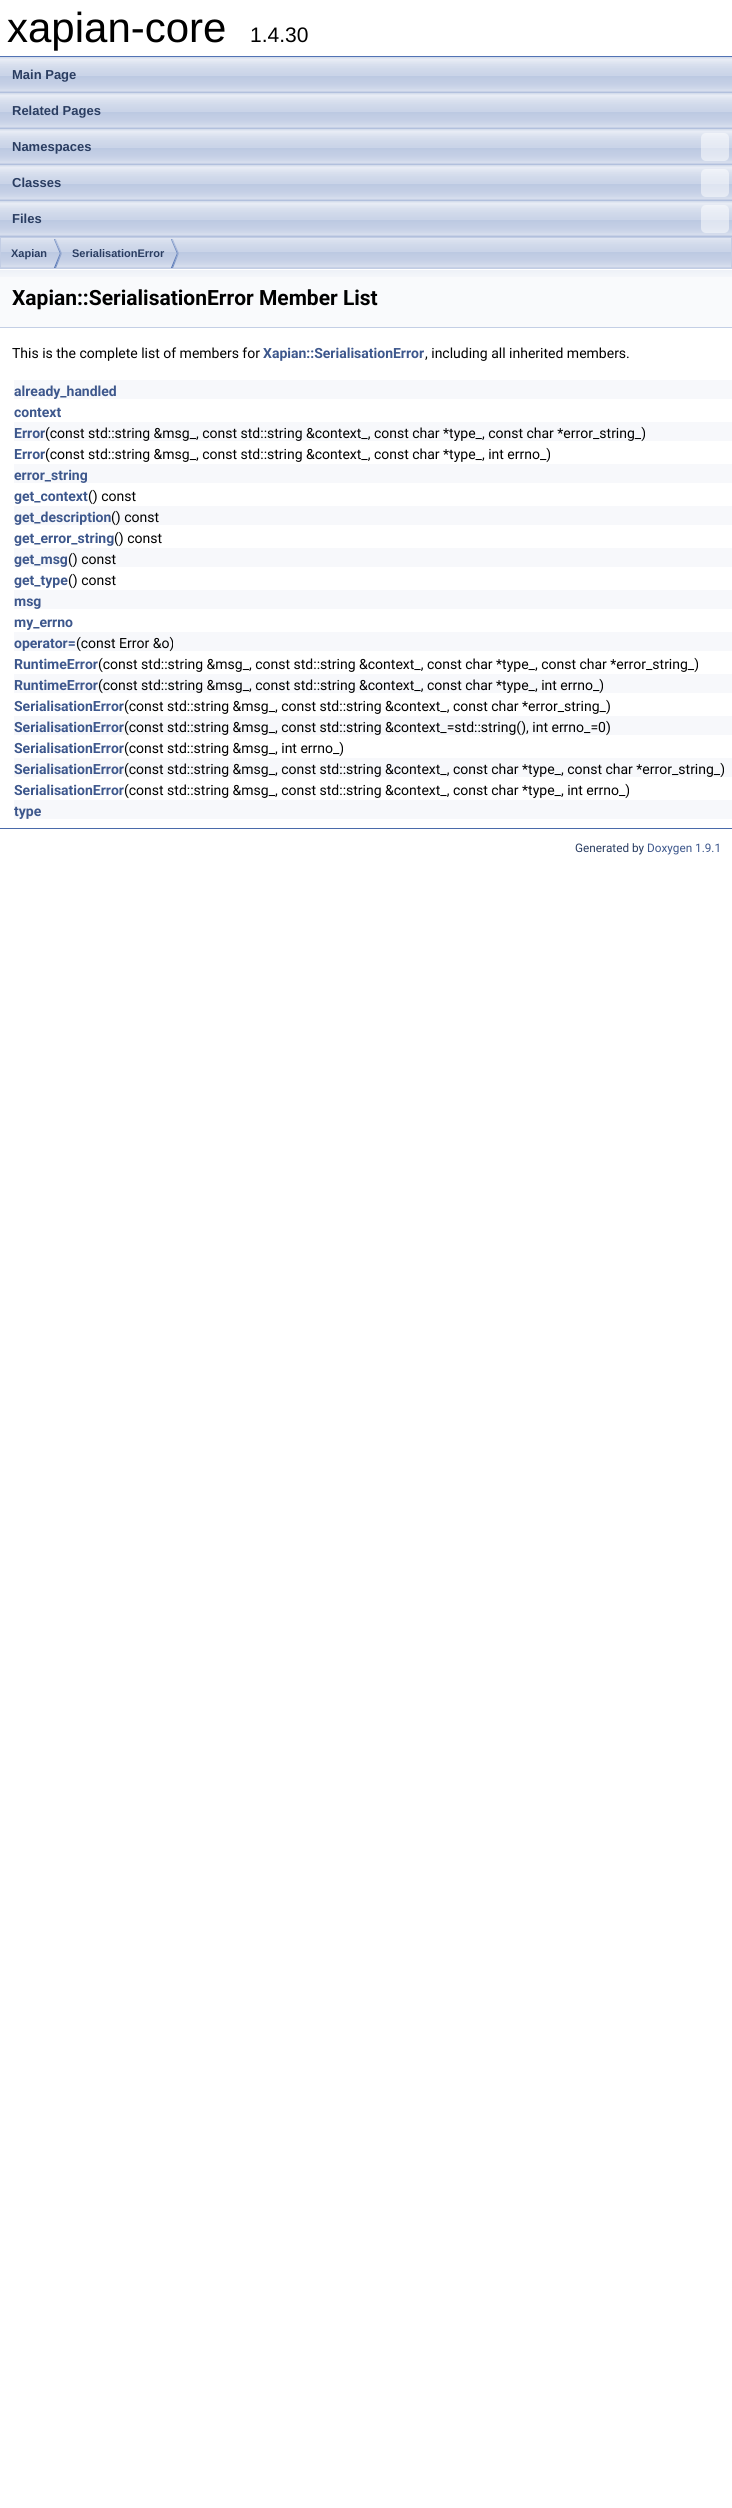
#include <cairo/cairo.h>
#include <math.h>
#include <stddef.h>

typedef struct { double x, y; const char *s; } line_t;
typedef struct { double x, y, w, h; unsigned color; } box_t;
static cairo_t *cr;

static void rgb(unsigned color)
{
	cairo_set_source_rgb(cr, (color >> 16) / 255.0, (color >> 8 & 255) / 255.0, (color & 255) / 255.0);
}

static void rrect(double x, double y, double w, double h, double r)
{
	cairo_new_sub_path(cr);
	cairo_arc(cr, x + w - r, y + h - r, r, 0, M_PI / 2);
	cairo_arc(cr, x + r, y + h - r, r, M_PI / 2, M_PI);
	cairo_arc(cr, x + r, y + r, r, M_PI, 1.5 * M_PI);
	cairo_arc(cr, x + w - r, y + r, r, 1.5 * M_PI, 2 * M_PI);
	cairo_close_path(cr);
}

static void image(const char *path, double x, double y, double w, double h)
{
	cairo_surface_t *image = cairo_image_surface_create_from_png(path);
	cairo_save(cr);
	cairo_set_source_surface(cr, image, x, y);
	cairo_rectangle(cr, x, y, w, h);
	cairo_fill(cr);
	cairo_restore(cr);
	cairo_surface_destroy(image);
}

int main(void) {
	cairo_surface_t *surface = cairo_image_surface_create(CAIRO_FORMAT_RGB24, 732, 2508);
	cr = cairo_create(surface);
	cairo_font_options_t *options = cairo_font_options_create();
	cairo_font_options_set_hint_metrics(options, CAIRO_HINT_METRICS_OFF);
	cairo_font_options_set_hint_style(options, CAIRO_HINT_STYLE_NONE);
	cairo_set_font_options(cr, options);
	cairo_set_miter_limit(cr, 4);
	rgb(0xffffff);
	cairo_paint(cr);
	rgb(0x5373b4);
	cairo_rectangle(cr, 0, 56, 732, 1);
	cairo_fill(cr);
	image("img/1.png", 0, 57, 732, 180);
	cairo_set_source_rgba(cr, 1, 1, 1, 0.5);
	rrect(701, 133, 28, 28, 5);
	cairo_fill(cr);
	rrect(701, 169, 28, 28, 5);
	cairo_fill(cr);
	rrect(701, 205, 28, 28, 5);
	cairo_fill(cr);
	image("img/2.png", 1, 238, 730, 30);
	cairo_rectangle(cr, 0.5, 237.5, 731, 31);
	rgb(0xc2cde4);
	cairo_set_line_width(cr, 1);
	cairo_stroke(cr);
	image("img/3.png", 54, 239, 8, 29);
	image("img/3.png", 171, 239, 8, 29);
	rgb(0xf9fafc);
	cairo_rectangle(cr, 0, 277, 732, 50);
	cairo_fill(cr);
	image("img/4.png", 0, 269, 732, 8);
	{
		static const box_t items[] = {
			{0, 327, 732, 1, 0xc4cfe5},
			{14, 380, 718, 19, 0xf7f8fb},
			{14, 422, 718, 19, 0xf7f8fb},
			{14, 464, 718, 19, 0xf7f8fb},
			{14, 506, 718, 19, 0xf7f8fb},
			{14, 548, 718, 19, 0xf7f8fb},
			{14, 590, 718, 19, 0xf7f8fb},
			{14, 632, 718, 19, 0xf7f8fb},
			{14, 674, 718, 19, 0xf7f8fb},
			{14, 716, 718, 19, 0xf7f8fb},
			{14, 758, 718, 19, 0xf7f8fb},
			{14, 800, 718, 19, 0xf7f8fb},
			{0, 828, 732, 1, 0x4a6aaa},
		};
		for (size_t i = 0; i < sizeof items / sizeof *items; i++) {
			rgb(items[i].color);
			cairo_rectangle(cr, items[i].x, items[i].y, items[i].w, items[i].h);
			cairo_fill(cr);
		}
	}
	cairo_select_font_face(cr, "Liberation Sans", CAIRO_FONT_SLANT_NORMAL, CAIRO_FONT_WEIGHT_NORMAL);
	cairo_set_font_size(cr, 42);
	rgb(0x000000);
	cairo_move_to(cr, 7, 42);
	cairo_show_text(cr, "xapian-core");
	cairo_set_font_size(cr, 21);
	cairo_move_to(cr, 250, 42);
	cairo_show_text(cr, "1.4.30");
	cairo_select_font_face(cr, "Liberation Sans", CAIRO_FONT_SLANT_NORMAL, CAIRO_FONT_WEIGHT_BOLD);
	cairo_set_font_size(cr, 13);
	rgb(0x2a3d61);
	{
		static const line_t items[] = {
			{12, 79, "Main Page"},
			{12, 115, "Related Pages"},
			{12, 151, "Namespaces"},
			{12, 187, "Classes"},
			{12, 223, "Files"},
		};
		for (size_t i = 0; i < sizeof items / sizeof *items; i++) {
			cairo_move_to(cr, items[i].x, items[i].y);
			cairo_show_text(cr, items[i].s);
		}
	}
	cairo_set_font_size(cr, 11);
	cairo_move_to(cr, 11, 257);
	cairo_show_text(cr, "Xapian");
	cairo_move_to(cr, 72, 257);
	cairo_show_text(cr, "SerialisationError");
	cairo_select_font_face(cr, "Roboto", CAIRO_FONT_SLANT_NORMAL, CAIRO_FONT_WEIGHT_BOLD);
	cairo_set_font_size(cr, 21);
	rgb(0x000000);
	cairo_move_to(cr, 12, 305);
	cairo_show_text(cr, "Xapian::SerialisationError Member List");
	cairo_select_font_face(cr, "Roboto", CAIRO_FONT_SLANT_NORMAL, CAIRO_FONT_WEIGHT_NORMAL);
	cairo_set_font_size(cr, 14);
	cairo_move_to(cr, 12, 358);
	cairo_show_text(cr, "This is the complete list of members for");
	cairo_select_font_face(cr, "Roboto", CAIRO_FONT_SLANT_NORMAL, CAIRO_FONT_WEIGHT_BOLD);
	rgb(0x3d578c);
	cairo_move_to(cr, 263, 358);
	cairo_show_text(cr, "Xapian::SerialisationError");
	cairo_select_font_face(cr, "Roboto", CAIRO_FONT_SLANT_NORMAL, CAIRO_FONT_WEIGHT_NORMAL);
	rgb(0x000000);
	cairo_move_to(cr, 425, 358);
	cairo_show_text(cr, ", including all inherited members.");
	cairo_select_font_face(cr, "Roboto", CAIRO_FONT_SLANT_NORMAL, CAIRO_FONT_WEIGHT_BOLD);
	rgb(0x3d578c);
	{
		static const line_t items[] = {
			{14, 396, "already_handled"},
			{14, 417, "context"},
			{14, 438, "Error"},
		};
		for (size_t i = 0; i < sizeof items / sizeof *items; i++) {
			cairo_move_to(cr, items[i].x, items[i].y);
			cairo_show_text(cr, items[i].s);
		}
	}
	cairo_select_font_face(cr, "Roboto", CAIRO_FONT_SLANT_NORMAL, CAIRO_FONT_WEIGHT_NORMAL);
	rgb(0x000000);
	cairo_move_to(cr, 45, 438);
	cairo_show_text(cr, "(const std::string &msg_, const std::string &context_, const char *type_, const char *error_string_)");
	cairo_select_font_face(cr, "Roboto", CAIRO_FONT_SLANT_NORMAL, CAIRO_FONT_WEIGHT_BOLD);
	rgb(0x3d578c);
	cairo_move_to(cr, 14, 459);
	cairo_show_text(cr, "Error");
	cairo_select_font_face(cr, "Roboto", CAIRO_FONT_SLANT_NORMAL, CAIRO_FONT_WEIGHT_NORMAL);
	rgb(0x000000);
	cairo_move_to(cr, 45, 459);
	cairo_show_text(cr, "(const std::string &msg_, const std::string &context_, const char *type_, int errno_)");
	cairo_select_font_face(cr, "Roboto", CAIRO_FONT_SLANT_NORMAL, CAIRO_FONT_WEIGHT_BOLD);
	rgb(0x3d578c);
	cairo_move_to(cr, 14, 480);
	cairo_show_text(cr, "error_string");
	cairo_move_to(cr, 14, 501);
	cairo_show_text(cr, "get_context");
	cairo_select_font_face(cr, "Roboto", CAIRO_FONT_SLANT_NORMAL, CAIRO_FONT_WEIGHT_NORMAL);
	rgb(0x000000);
	cairo_move_to(cr, 88, 501);
	cairo_show_text(cr, "() const");
	cairo_select_font_face(cr, "Roboto", CAIRO_FONT_SLANT_NORMAL, CAIRO_FONT_WEIGHT_BOLD);
	rgb(0x3d578c);
	cairo_move_to(cr, 14, 522);
	cairo_show_text(cr, "get_description");
	cairo_select_font_face(cr, "Roboto", CAIRO_FONT_SLANT_NORMAL, CAIRO_FONT_WEIGHT_NORMAL);
	rgb(0x000000);
	cairo_move_to(cr, 111, 522);
	cairo_show_text(cr, "() const");
	cairo_select_font_face(cr, "Roboto", CAIRO_FONT_SLANT_NORMAL, CAIRO_FONT_WEIGHT_BOLD);
	rgb(0x3d578c);
	cairo_move_to(cr, 14, 543);
	cairo_show_text(cr, "get_error_string");
	cairo_select_font_face(cr, "Roboto", CAIRO_FONT_SLANT_NORMAL, CAIRO_FONT_WEIGHT_NORMAL);
	rgb(0x000000);
	cairo_move_to(cr, 114, 543);
	cairo_show_text(cr, "() const");
	cairo_select_font_face(cr, "Roboto", CAIRO_FONT_SLANT_NORMAL, CAIRO_FONT_WEIGHT_BOLD);
	rgb(0x3d578c);
	cairo_move_to(cr, 14, 564);
	cairo_show_text(cr, "get_msg");
	cairo_select_font_face(cr, "Roboto", CAIRO_FONT_SLANT_NORMAL, CAIRO_FONT_WEIGHT_NORMAL);
	rgb(0x000000);
	cairo_move_to(cr, 68, 564);
	cairo_show_text(cr, "() const");
	cairo_select_font_face(cr, "Roboto", CAIRO_FONT_SLANT_NORMAL, CAIRO_FONT_WEIGHT_BOLD);
	rgb(0x3d578c);
	cairo_move_to(cr, 14, 585);
	cairo_show_text(cr, "get_type");
	cairo_select_font_face(cr, "Roboto", CAIRO_FONT_SLANT_NORMAL, CAIRO_FONT_WEIGHT_NORMAL);
	rgb(0x000000);
	cairo_move_to(cr, 68, 585);
	cairo_show_text(cr, "() const");
	cairo_select_font_face(cr, "Roboto", CAIRO_FONT_SLANT_NORMAL, CAIRO_FONT_WEIGHT_BOLD);
	rgb(0x3d578c);
	{
		static const line_t items[] = {
			{14, 606, "msg"},
			{14, 627, "my_errno"},
			{14, 648, "operator="},
		};
		for (size_t i = 0; i < sizeof items / sizeof *items; i++) {
			cairo_move_to(cr, items[i].x, items[i].y);
			cairo_show_text(cr, items[i].s);
		}
	}
	cairo_select_font_face(cr, "Roboto", CAIRO_FONT_SLANT_NORMAL, CAIRO_FONT_WEIGHT_NORMAL);
	rgb(0x000000);
	cairo_move_to(cr, 76, 648);
	cairo_show_text(cr, "(const Error &o)");
	cairo_select_font_face(cr, "Roboto", CAIRO_FONT_SLANT_NORMAL, CAIRO_FONT_WEIGHT_BOLD);
	rgb(0x3d578c);
	cairo_move_to(cr, 14, 669);
	cairo_show_text(cr, "RuntimeError");
	cairo_select_font_face(cr, "Roboto", CAIRO_FONT_SLANT_NORMAL, CAIRO_FONT_WEIGHT_NORMAL);
	rgb(0x000000);
	cairo_move_to(cr, 98, 669);
	cairo_show_text(cr, "(const std::string &msg_, const std::string &context_, const char *type_, const char *error_string_)");
	cairo_select_font_face(cr, "Roboto", CAIRO_FONT_SLANT_NORMAL, CAIRO_FONT_WEIGHT_BOLD);
	rgb(0x3d578c);
	cairo_move_to(cr, 14, 690);
	cairo_show_text(cr, "RuntimeError");
	cairo_select_font_face(cr, "Roboto", CAIRO_FONT_SLANT_NORMAL, CAIRO_FONT_WEIGHT_NORMAL);
	rgb(0x000000);
	cairo_move_to(cr, 98, 690);
	cairo_show_text(cr, "(const std::string &msg_, const std::string &context_, const char *type_, int errno_)");
	cairo_select_font_face(cr, "Roboto", CAIRO_FONT_SLANT_NORMAL, CAIRO_FONT_WEIGHT_BOLD);
	rgb(0x3d578c);
	cairo_move_to(cr, 14, 711);
	cairo_show_text(cr, "SerialisationError");
	cairo_select_font_face(cr, "Roboto", CAIRO_FONT_SLANT_NORMAL, CAIRO_FONT_WEIGHT_NORMAL);
	rgb(0x000000);
	cairo_move_to(cr, 124, 711);
	cairo_show_text(cr, "(const std::string &msg_, const std::string &context_, const char *error_string_)");
	cairo_select_font_face(cr, "Roboto", CAIRO_FONT_SLANT_NORMAL, CAIRO_FONT_WEIGHT_BOLD);
	rgb(0x3d578c);
	cairo_move_to(cr, 14, 732);
	cairo_show_text(cr, "SerialisationError");
	cairo_select_font_face(cr, "Roboto", CAIRO_FONT_SLANT_NORMAL, CAIRO_FONT_WEIGHT_NORMAL);
	rgb(0x000000);
	cairo_move_to(cr, 124, 732);
	cairo_show_text(cr, "(const std::string &msg_, const std::string &context_=std::string(), int errno_=0)");
	cairo_select_font_face(cr, "Roboto", CAIRO_FONT_SLANT_NORMAL, CAIRO_FONT_WEIGHT_BOLD);
	rgb(0x3d578c);
	cairo_move_to(cr, 14, 753);
	cairo_show_text(cr, "SerialisationError");
	cairo_select_font_face(cr, "Roboto", CAIRO_FONT_SLANT_NORMAL, CAIRO_FONT_WEIGHT_NORMAL);
	rgb(0x000000);
	cairo_move_to(cr, 124, 753);
	cairo_show_text(cr, "(const std::string &msg_, int errno_)");
	cairo_select_font_face(cr, "Roboto", CAIRO_FONT_SLANT_NORMAL, CAIRO_FONT_WEIGHT_BOLD);
	rgb(0x3d578c);
	cairo_move_to(cr, 14, 774);
	cairo_show_text(cr, "SerialisationError");
	cairo_select_font_face(cr, "Roboto", CAIRO_FONT_SLANT_NORMAL, CAIRO_FONT_WEIGHT_NORMAL);
	rgb(0x000000);
	cairo_move_to(cr, 124, 774);
	cairo_show_text(cr, "(const std::string &msg_, const std::string &context_, const char *type_, const char *error_string_)");
	cairo_select_font_face(cr, "Roboto", CAIRO_FONT_SLANT_NORMAL, CAIRO_FONT_WEIGHT_BOLD);
	rgb(0x3d578c);
	cairo_move_to(cr, 14, 795);
	cairo_show_text(cr, "SerialisationError");
	cairo_select_font_face(cr, "Roboto", CAIRO_FONT_SLANT_NORMAL, CAIRO_FONT_WEIGHT_NORMAL);
	rgb(0x000000);
	cairo_move_to(cr, 124, 795);
	cairo_show_text(cr, "(const std::string &msg_, const std::string &context_, const char *type_, int errno_)");
	cairo_select_font_face(cr, "Roboto", CAIRO_FONT_SLANT_NORMAL, CAIRO_FONT_WEIGHT_BOLD);
	rgb(0x3d578c);
	cairo_move_to(cr, 14, 816);
	cairo_show_text(cr, "type");
	cairo_select_font_face(cr, "Roboto", CAIRO_FONT_SLANT_NORMAL, CAIRO_FONT_WEIGHT_NORMAL);
	cairo_set_font_size(cr, 11.75);
	rgb(0x2a3d61);
	cairo_move_to(cr, 575, 852);
	cairo_show_text(cr, "Generated by");
	rgb(0x3d578c);
	cairo_move_to(cr, 647, 852);
	cairo_show_text(cr, "Doxygen 1.9.1");
	cairo_surface_write_to_png(surface, "page.png");
	cairo_font_options_destroy(options);
	cairo_destroy(cr);
	cairo_surface_destroy(surface);
	return 0;
}
